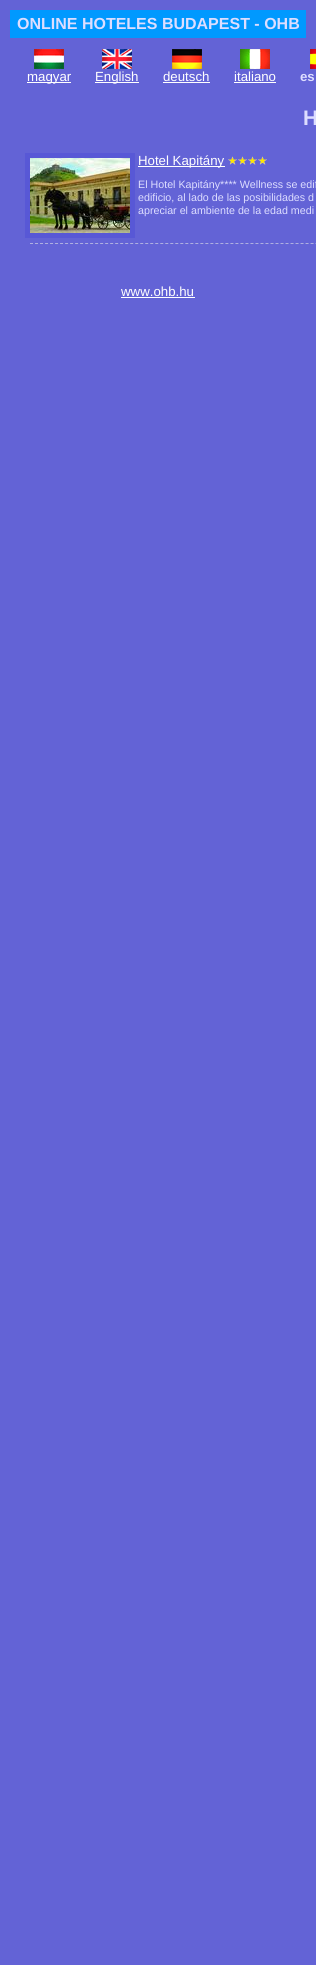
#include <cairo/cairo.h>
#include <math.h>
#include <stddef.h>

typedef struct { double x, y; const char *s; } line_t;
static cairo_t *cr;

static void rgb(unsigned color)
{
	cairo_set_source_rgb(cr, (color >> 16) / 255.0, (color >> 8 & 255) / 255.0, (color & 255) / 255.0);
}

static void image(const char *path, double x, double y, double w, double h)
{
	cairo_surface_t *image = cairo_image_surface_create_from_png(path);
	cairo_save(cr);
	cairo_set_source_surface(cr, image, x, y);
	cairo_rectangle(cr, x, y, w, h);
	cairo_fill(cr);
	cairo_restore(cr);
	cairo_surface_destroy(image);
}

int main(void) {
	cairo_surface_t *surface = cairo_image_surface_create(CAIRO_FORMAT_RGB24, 316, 1965);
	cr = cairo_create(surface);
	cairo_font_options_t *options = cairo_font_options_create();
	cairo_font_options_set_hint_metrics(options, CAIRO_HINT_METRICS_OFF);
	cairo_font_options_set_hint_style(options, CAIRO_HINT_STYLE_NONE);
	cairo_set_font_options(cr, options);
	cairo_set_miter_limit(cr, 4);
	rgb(0x6363d6);
	cairo_paint(cr);
	rgb(0x0099ff);
	cairo_rectangle(cr, 10, 10, 296, 28);
	cairo_fill(cr);
	image("img/1.png", 34, 49, 30, 20);
	rgb(0xffffff);
	cairo_rectangle(cr, 27, 82, 44, 1);
	cairo_fill(cr);
	image("img/2.png", 102, 49, 30, 20);
	cairo_rectangle(cr, 95, 82, 44, 1);
	cairo_fill(cr);
	image("img/3.png", 172, 49, 30, 20);
	cairo_rectangle(cr, 163, 82, 47, 1);
	cairo_fill(cr);
	image("img/4.png", 240, 49, 30, 20);
	cairo_rectangle(cr, 234, 82, 42, 1);
	cairo_fill(cr);
	image("img/5.png", 310, 49, 6, 20);
	rgb(0x5858d6);
	cairo_rectangle(cr, 25, 153, 110, 85);
	cairo_fill(cr);
	image("img/6.png", 30, 158, 100, 75);
	rgb(0xffffff);
	cairo_rectangle(cr, 138, 166, 87, 1);
	cairo_fill(cr);
	image("img/7.png", 228, 156, 39, 9);
	cairo_new_path(cr);
	cairo_move_to(cr, 30, 243.5);
	cairo_line_to(cr, 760, 243.5);
	rgb(0xb0b0e0);
	cairo_set_line_width(cr, 1);
	cairo_set_dash(cr, (double[]){3, 2.01}, 2, 0);
	cairo_stroke(cr);
	rgb(0xffffff);
	cairo_rectangle(cr, 121, 297, 74, 1);
	cairo_fill(cr);
	cairo_select_font_face(cr, "Liberation Sans", CAIRO_FONT_SLANT_NORMAL, CAIRO_FONT_WEIGHT_BOLD);
	cairo_set_font_size(cr, 16);
	rgb(0xddddff);
	cairo_move_to(cr, 17, 29);
	cairo_show_text(cr, "ONLINE HOTELES BUDAPEST - OHB");
	cairo_select_font_face(cr, "Liberation Sans", CAIRO_FONT_SLANT_NORMAL, CAIRO_FONT_WEIGHT_NORMAL);
	cairo_set_font_size(cr, 13.25);
	rgb(0xffffff);
	{
		static const line_t items[] = {
			{27, 81, "magyar"},
			{95, 81, "English"},
			{163, 81, "deutsch"},
			{234, 81, "italiano"},
		};
		for (size_t i = 0; i < sizeof items / sizeof *items; i++) {
			cairo_move_to(cr, items[i].x, items[i].y);
			cairo_show_text(cr, items[i].s);
		}
	}
	cairo_select_font_face(cr, "Liberation Sans", CAIRO_FONT_SLANT_NORMAL, CAIRO_FONT_WEIGHT_BOLD);
	rgb(0xddddff);
	cairo_move_to(cr, 300, 81);
	cairo_show_text(cr, "es");
	cairo_set_font_size(cr, 21);
	cairo_move_to(cr, 303, 125);
	cairo_show_text(cr, "H");
	cairo_select_font_face(cr, "Liberation Sans", CAIRO_FONT_SLANT_NORMAL, CAIRO_FONT_WEIGHT_NORMAL);
	cairo_set_font_size(cr, 13.25);
	rgb(0xffffff);
	cairo_move_to(cr, 138, 165);
	cairo_show_text(cr, "Hotel Kapitány");
	cairo_set_font_size(cr, 10.7);
	rgb(0xddddff);
	{
		static const line_t items[] = {
			{138, 188, "El Hotel Kapitány**** Wellness se edif"},
			{138, 201, "edificio, al lado de las posibilidades d"},
			{138, 214, "apreciar el ambiente de la edad medi"},
		};
		for (size_t i = 0; i < sizeof items / sizeof *items; i++) {
			cairo_move_to(cr, items[i].x, items[i].y);
			cairo_show_text(cr, items[i].s);
		}
	}
	cairo_set_font_size(cr, 13.25);
	rgb(0xffffff);
	cairo_move_to(cr, 121, 296);
	cairo_show_text(cr, "www.ohb.hu");
	cairo_surface_write_to_png(surface, "page.png");
	cairo_font_options_destroy(options);
	cairo_destroy(cr);
	cairo_surface_destroy(surface);
	return 0;
}
